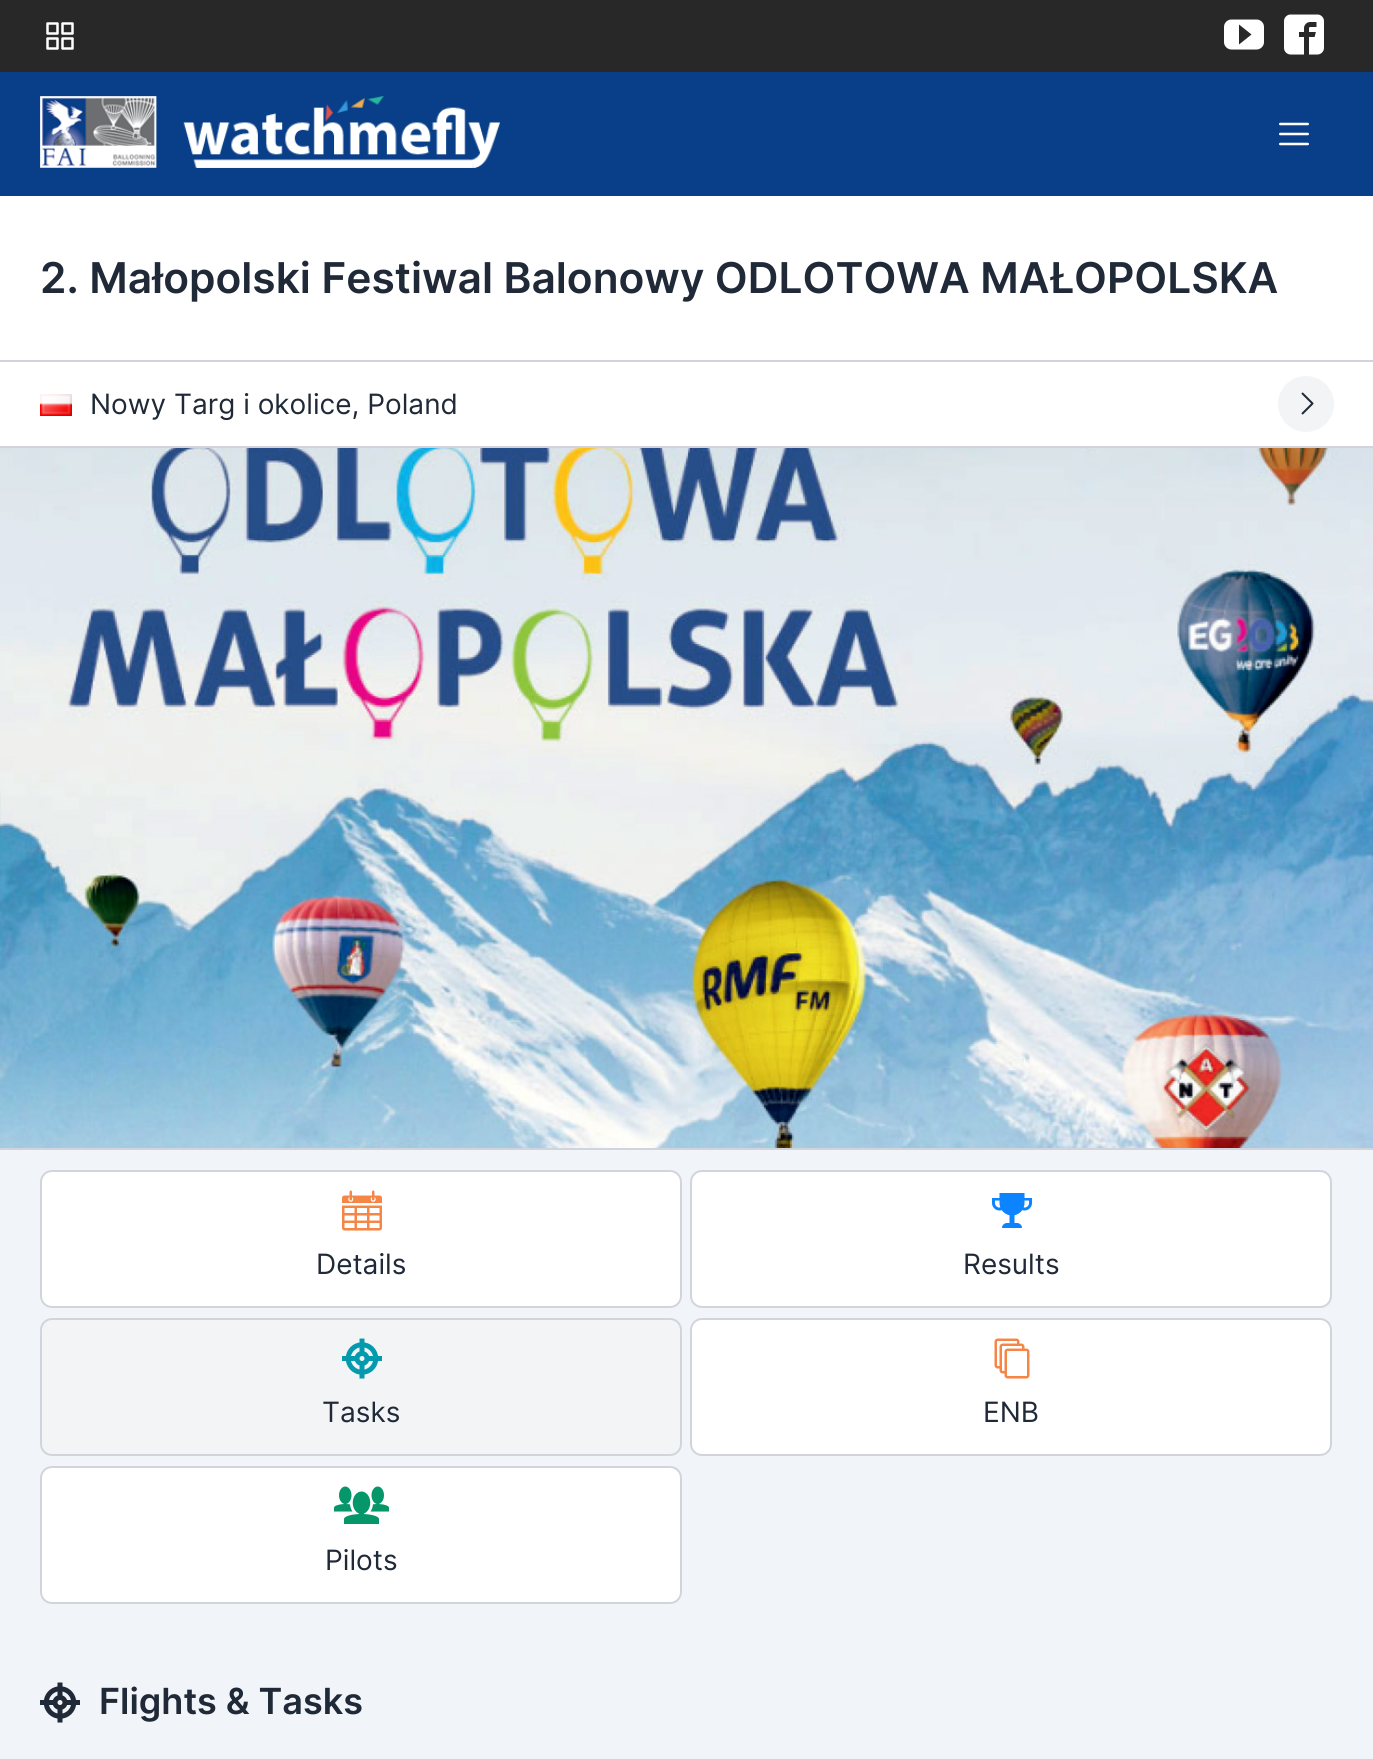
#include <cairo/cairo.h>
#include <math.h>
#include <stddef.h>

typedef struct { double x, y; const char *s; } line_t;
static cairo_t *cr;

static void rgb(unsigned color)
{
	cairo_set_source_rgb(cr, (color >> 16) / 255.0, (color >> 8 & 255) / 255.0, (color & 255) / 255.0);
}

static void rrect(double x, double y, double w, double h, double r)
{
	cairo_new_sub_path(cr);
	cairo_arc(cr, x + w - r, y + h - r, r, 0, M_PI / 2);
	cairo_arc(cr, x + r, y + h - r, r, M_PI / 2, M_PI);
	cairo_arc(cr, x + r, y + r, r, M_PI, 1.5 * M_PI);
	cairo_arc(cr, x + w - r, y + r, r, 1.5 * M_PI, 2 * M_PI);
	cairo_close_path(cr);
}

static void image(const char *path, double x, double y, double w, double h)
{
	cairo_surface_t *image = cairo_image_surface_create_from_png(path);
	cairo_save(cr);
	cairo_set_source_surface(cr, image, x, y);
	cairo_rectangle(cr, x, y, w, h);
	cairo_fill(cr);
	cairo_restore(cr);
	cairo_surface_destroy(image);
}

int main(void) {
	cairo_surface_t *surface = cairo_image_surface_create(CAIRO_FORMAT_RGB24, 1373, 1759);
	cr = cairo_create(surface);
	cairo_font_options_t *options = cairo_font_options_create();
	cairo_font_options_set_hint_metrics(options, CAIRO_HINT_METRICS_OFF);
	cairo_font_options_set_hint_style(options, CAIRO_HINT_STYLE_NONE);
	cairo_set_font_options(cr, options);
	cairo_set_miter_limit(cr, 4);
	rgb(0xf1f4f9);
	cairo_paint(cr);
	rgb(0x282828);
	cairo_rectangle(cr, 0, 0, 1373, 72);
	cairo_fill(cr);
	image("img/1.png", 46, 22, 28, 28);
	image("img/2.png", 1224, 19, 40, 31);
	image("img/3.png", 1284, 14, 40, 41);
	rgb(0x093f89);
	cairo_rectangle(cr, 0, 72, 1373, 124);
	cairo_fill(cr);
	image("img/4.png", 40, 96, 460, 72);
	image("img/5.png", 1279, 122, 30, 24);
	rgb(0xffffff);
	cairo_rectangle(cr, 0, 196, 1373, 250);
	cairo_fill(cr);
	rgb(0xd1d5db);
	cairo_rectangle(cr, 0, 360, 1373, 2);
	cairo_fill(cr);
	image("img/6.png", 40, 394, 32, 22);
	rgb(0xf3f4f6);
	cairo_arc(cr, 1306, 404, 28, 0, 2 * M_PI);
	cairo_fill(cr);
	image("img/7.png", 1301, 392, 13, 23);
	rgb(0xd1d5db);
	cairo_rectangle(cr, 0, 446, 1373, 2);
	cairo_fill(cr);
	cairo_rectangle(cr, 0, 1148, 1373, 2);
	cairo_fill(cr);
	image("img/8.png", 0, 448, 1373, 700);
	rgb(0xffffff);
	rrect(41, 1171, 640, 136, 11);
	cairo_fill_preserve(cr);
	rgb(0xd1d5db);
	cairo_stroke(cr);
	image("img/9.png", 342, 1190, 40, 41);
	rgb(0xffffff);
	rrect(691, 1171, 640, 136, 11);
	cairo_fill_preserve(cr);
	rgb(0xd1d5db);
	cairo_stroke(cr);
	image("img/10.png", 992, 1193, 40, 35);
	rgb(0xf3f4f6);
	rrect(41, 1319, 640, 136, 11);
	cairo_fill_preserve(cr);
	rgb(0xd1d5db);
	cairo_stroke(cr);
	image("img/11.png", 342, 1338, 40, 41);
	rgb(0xffffff);
	rrect(691, 1319, 640, 136, 11);
	cairo_fill_preserve(cr);
	rgb(0xd1d5db);
	cairo_stroke(cr);
	image("img/12.png", 994, 1338, 36, 41);
	rgb(0xffffff);
	rrect(41, 1467, 640, 136, 11);
	cairo_fill_preserve(cr);
	rgb(0xd1d5db);
	cairo_stroke(cr);
	image("img/13.png", 334, 1486, 55, 38);
	image("img/14.png", 40, 1682, 40, 41);
	cairo_select_font_face(cr, "Inter SemiBold", CAIRO_FONT_SLANT_NORMAL, CAIRO_FONT_WEIGHT_NORMAL);
	cairo_set_font_size(cr, 42.45);
	rgb(0x1f2937);
	cairo_move_to(cr, 40, 293);
	cairo_show_text(cr, "2. Małopolski Festiwal Balonowy ODLOTOWA MAŁOPOLSKA");
	cairo_select_font_face(cr, "Inter", CAIRO_FONT_SLANT_NORMAL, CAIRO_FONT_WEIGHT_NORMAL);
	cairo_set_font_size(cr, 28);
	{
		static const line_t items[] = {
			{90, 414, "Nowy Targ i okolice, Poland"},
			{316, 1274, "Details"},
			{963, 1274, "Results"},
			{322, 1422, "Tasks"},
			{983, 1422, "ENB"},
			{325, 1570, "Pilots"},
		};
		for (size_t i = 0; i < sizeof items / sizeof *items; i++) {
			cairo_move_to(cr, items[i].x, items[i].y);
			cairo_show_text(cr, items[i].s);
		}
	}
	cairo_select_font_face(cr, "Inter SemiBold", CAIRO_FONT_SLANT_NORMAL, CAIRO_FONT_WEIGHT_NORMAL);
	cairo_set_font_size(cr, 36);
	cairo_move_to(cr, 99, 1714);
	cairo_show_text(cr, "Flights & Tasks");
	cairo_surface_write_to_png(surface, "page.png");
	cairo_font_options_destroy(options);
	cairo_destroy(cr);
	cairo_surface_destroy(surface);
	return 0;
}
